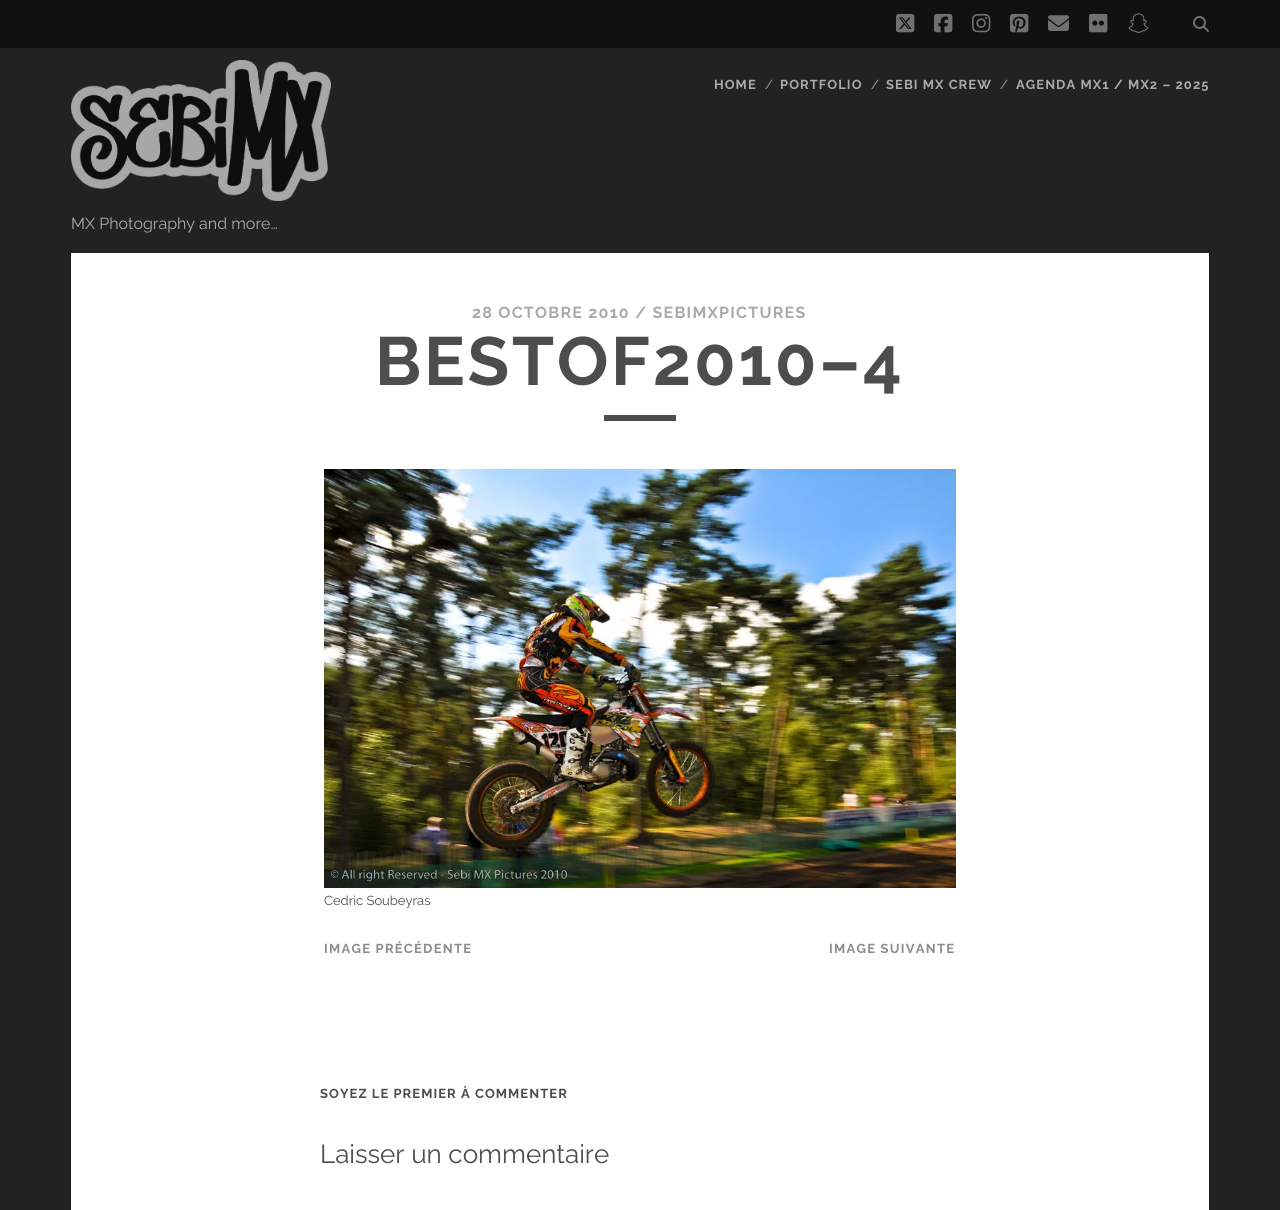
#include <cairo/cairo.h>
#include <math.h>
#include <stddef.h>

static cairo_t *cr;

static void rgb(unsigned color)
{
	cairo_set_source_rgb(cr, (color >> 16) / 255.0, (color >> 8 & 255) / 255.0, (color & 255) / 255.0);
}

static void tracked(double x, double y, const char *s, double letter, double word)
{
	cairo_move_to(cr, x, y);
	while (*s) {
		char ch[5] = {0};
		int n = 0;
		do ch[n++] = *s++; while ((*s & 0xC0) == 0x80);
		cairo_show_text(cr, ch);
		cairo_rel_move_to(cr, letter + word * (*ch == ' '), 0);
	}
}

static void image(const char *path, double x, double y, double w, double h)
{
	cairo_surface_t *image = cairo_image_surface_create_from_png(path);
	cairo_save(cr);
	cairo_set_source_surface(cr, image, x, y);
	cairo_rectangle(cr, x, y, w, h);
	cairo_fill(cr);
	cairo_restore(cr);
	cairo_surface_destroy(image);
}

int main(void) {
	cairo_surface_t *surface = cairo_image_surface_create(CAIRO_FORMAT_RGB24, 1280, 1210);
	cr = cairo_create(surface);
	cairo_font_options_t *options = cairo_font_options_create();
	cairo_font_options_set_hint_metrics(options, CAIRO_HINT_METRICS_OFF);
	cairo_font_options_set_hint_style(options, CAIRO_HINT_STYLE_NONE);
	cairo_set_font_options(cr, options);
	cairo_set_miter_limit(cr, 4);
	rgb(0x222222);
	cairo_paint(cr);
	rgb(0x111111);
	cairo_rectangle(cr, 0, 0, 1280, 48);
	cairo_fill(cr);
	image("img/1.png", 896, 13, 19, 20);
	image("img/2.png", 934, 13, 19, 20);
	image("img/3.png", 972, 13, 19, 20);
	image("img/4.png", 1010, 13, 19, 20);
	image("img/5.png", 1048, 15, 21, 16);
	image("img/6.png", 1089, 13, 19, 20);
	image("img/7.png", 1128, 13, 21, 20);
	image("img/8.png", 1193, 16, 16, 16);
	image("img/9.png", 71, 60, 260, 141);
	rgb(0xffffff);
	cairo_rectangle(cr, 71, 253, 1138, 957);
	cairo_fill(cr);
	rgb(0x4d4d4d);
	cairo_rectangle(cr, 604, 415, 72, 6);
	cairo_fill(cr);
	image("img/10.png", 324, 469, 632, 419);
	cairo_select_font_face(cr, "Raleway", CAIRO_FONT_SLANT_NORMAL, CAIRO_FONT_WEIGHT_BOLD);
	cairo_set_font_size(cr, 13);
	rgb(0xaaaaaa);
	tracked(714, 89, "HOME", 1.05, 0);
	cairo_select_font_face(cr, "Raleway", CAIRO_FONT_SLANT_NORMAL, CAIRO_FONT_WEIGHT_NORMAL);
	cairo_move_to(cr, 765, 89);
	cairo_show_text(cr, "/");
	cairo_select_font_face(cr, "Raleway", CAIRO_FONT_SLANT_NORMAL, CAIRO_FONT_WEIGHT_BOLD);
	tracked(780, 89, "PORTFOLIO", 1.05, 0);
	cairo_select_font_face(cr, "Raleway", CAIRO_FONT_SLANT_NORMAL, CAIRO_FONT_WEIGHT_NORMAL);
	cairo_move_to(cr, 871, 89);
	cairo_show_text(cr, "/");
	cairo_select_font_face(cr, "Raleway", CAIRO_FONT_SLANT_NORMAL, CAIRO_FONT_WEIGHT_BOLD);
	tracked(886, 89, "SEBI MX CREW", 1.05, 0);
	cairo_select_font_face(cr, "Raleway", CAIRO_FONT_SLANT_NORMAL, CAIRO_FONT_WEIGHT_NORMAL);
	cairo_move_to(cr, 1000, 89);
	cairo_show_text(cr, "/");
	cairo_select_font_face(cr, "Raleway", CAIRO_FONT_SLANT_NORMAL, CAIRO_FONT_WEIGHT_BOLD);
	tracked(1016, 89, "AGENDA MX1 / MX2 – 2025", 1.05, 0);
	cairo_select_font_face(cr, "Raleway", CAIRO_FONT_SLANT_NORMAL, CAIRO_FONT_WEIGHT_NORMAL);
	cairo_set_font_size(cr, 16);
	cairo_move_to(cr, 71, 229);
	cairo_show_text(cr, "MX Photography and more…");
	cairo_select_font_face(cr, "Raleway", CAIRO_FONT_SLANT_NORMAL, CAIRO_FONT_WEIGHT_BOLD);
	tracked(472, 318, "28 OCTOBRE 2010 / SEBIMXPICTURES", 1.25, 0);
	cairo_set_font_size(cr, 68);
	rgb(0x4d4d4d);
	tracked(375, 385, "BESTOF2010–4", 2.75, 0);
	cairo_select_font_face(cr, "Raleway", CAIRO_FONT_SLANT_NORMAL, CAIRO_FONT_WEIGHT_NORMAL);
	cairo_set_font_size(cr, 13);
	cairo_move_to(cr, 324, 905);
	cairo_show_text(cr, "Cedric Soubeyras");
	cairo_select_font_face(cr, "Raleway", CAIRO_FONT_SLANT_NORMAL, CAIRO_FONT_WEIGHT_BOLD);
	rgb(0x8c8c8c);
	tracked(324, 953, "IMAGE PRÉCÉDENTE", 1.25, 0);
	tracked(829, 953, "IMAGE SUIVANTE", 1.25, 0);
	rgb(0x4d4d4d);
	tracked(320, 1098, "SOYEZ LE PREMIER À COMMENTER", 1.05, 0);
	cairo_select_font_face(cr, "Raleway", CAIRO_FONT_SLANT_NORMAL, CAIRO_FONT_WEIGHT_NORMAL);
	cairo_set_font_size(cr, 26);
	cairo_move_to(cr, 320, 1163);
	cairo_show_text(cr, "Laisser un commentaire");
	cairo_surface_write_to_png(surface, "page.png");
	cairo_font_options_destroy(options);
	cairo_destroy(cr);
	cairo_surface_destroy(surface);
	return 0;
}
